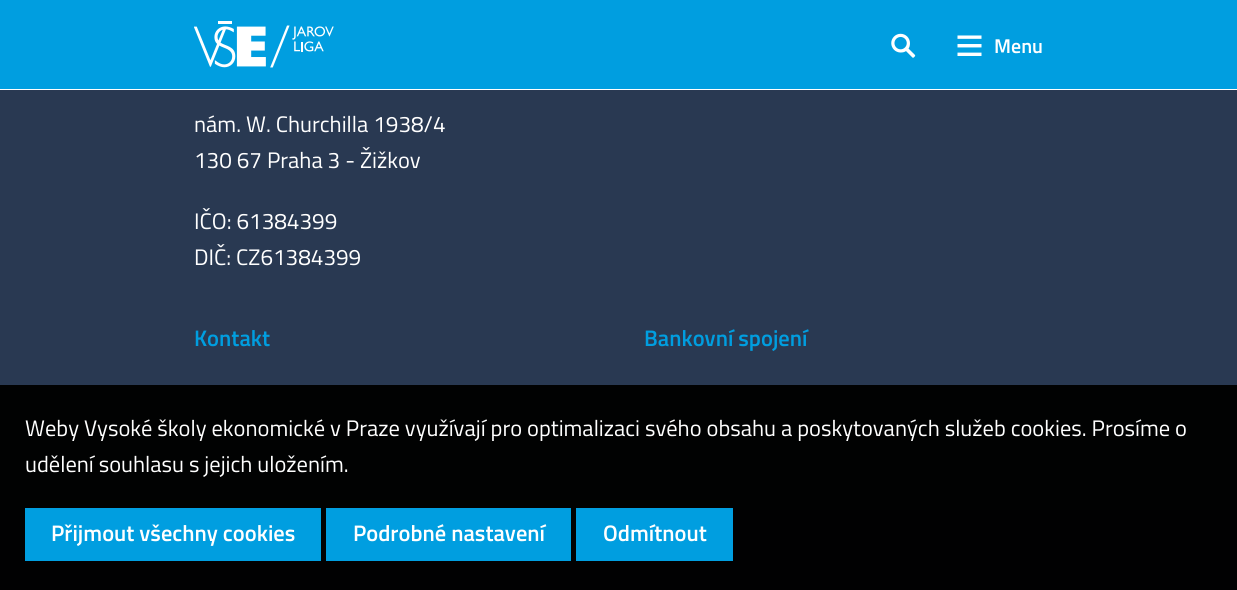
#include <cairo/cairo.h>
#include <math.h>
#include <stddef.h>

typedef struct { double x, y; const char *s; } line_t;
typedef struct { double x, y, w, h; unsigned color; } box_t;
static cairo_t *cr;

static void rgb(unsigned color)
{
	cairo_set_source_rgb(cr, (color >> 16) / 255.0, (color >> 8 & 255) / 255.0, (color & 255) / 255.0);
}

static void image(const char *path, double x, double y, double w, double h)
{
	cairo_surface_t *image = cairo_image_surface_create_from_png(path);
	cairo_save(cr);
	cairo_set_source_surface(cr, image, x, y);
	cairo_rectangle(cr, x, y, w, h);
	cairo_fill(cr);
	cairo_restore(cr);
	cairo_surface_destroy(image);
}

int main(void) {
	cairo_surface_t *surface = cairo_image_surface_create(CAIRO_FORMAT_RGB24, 1237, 590);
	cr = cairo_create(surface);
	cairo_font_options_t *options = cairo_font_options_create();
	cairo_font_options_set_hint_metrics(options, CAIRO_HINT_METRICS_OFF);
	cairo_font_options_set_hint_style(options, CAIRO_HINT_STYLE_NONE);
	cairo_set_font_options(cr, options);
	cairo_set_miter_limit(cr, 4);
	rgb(0x293952);
	cairo_paint(cr);
	rgb(0x009ee0);
	cairo_rectangle(cr, 0, 0, 1237, 89);
	cairo_fill(cr);
	rgb(0xffffff);
	cairo_rectangle(cr, 0, 89, 1237, 1);
	cairo_fill(cr);
	image("img/1.png", 194, 21, 140, 47);
	image("img/2.png", 891, 33, 25, 25);
	image("img/3.png", 957, 35, 25, 21);
	{
		static const box_t items[] = {
			{0, 385, 1237, 125, 0x010202},
			{0, 510, 1237, 80, 0x010102},
			{25, 508, 296, 53, 0x009ee0},
			{326, 508, 245, 53, 0x009ee0},
			{576, 508, 157, 53, 0x009ee0},
		};
		for (size_t i = 0; i < sizeof items / sizeof *items; i++) {
			rgb(items[i].color);
			cairo_rectangle(cr, items[i].x, items[i].y, items[i].w, items[i].h);
			cairo_fill(cr);
		}
	}
	cairo_select_font_face(cr, "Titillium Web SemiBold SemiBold", CAIRO_FONT_SLANT_NORMAL, CAIRO_FONT_WEIGHT_NORMAL);
	cairo_set_font_size(cr, 20);
	rgb(0xffffff);
	cairo_move_to(cr, 994, 53);
	cairo_show_text(cr, "Menu");
	cairo_select_font_face(cr, "Titillium Web", CAIRO_FONT_SLANT_NORMAL, CAIRO_FONT_WEIGHT_NORMAL);
	cairo_set_font_size(cr, 22.5);
	{
		static const line_t items[] = {
			{194, 132, "nám. W. Churchilla 1938/4"},
			{194, 168, "130 67 Praha 3 - Žižkov"},
			{194, 229, "IČO: 61384399"},
			{194, 265, "DIČ: CZ61384399"},
		};
		for (size_t i = 0; i < sizeof items / sizeof *items; i++) {
			cairo_move_to(cr, items[i].x, items[i].y);
			cairo_show_text(cr, items[i].s);
		}
	}
	cairo_select_font_face(cr, "Titillium Web SemiBold SemiBold", CAIRO_FONT_SLANT_NORMAL, CAIRO_FONT_WEIGHT_NORMAL);
	rgb(0x009ee0);
	cairo_move_to(cr, 194, 346);
	cairo_show_text(cr, "Kontakt");
	cairo_move_to(cr, 644, 346);
	cairo_show_text(cr, "Bankovní spojení");
	cairo_select_font_face(cr, "Titillium Web", CAIRO_FONT_SLANT_NORMAL, CAIRO_FONT_WEIGHT_NORMAL);
	rgb(0xffffff);
	cairo_move_to(cr, 25, 436);
	cairo_show_text(cr, "Weby Vysoké školy ekonomické v Praze využívají pro optimalizaci svého obsahu a poskytovaných služeb cookies. Prosíme o");
	cairo_move_to(cr, 25, 472);
	cairo_show_text(cr, "udělení souhlasu s jejich uložením.");
	cairo_select_font_face(cr, "Titillium Web SemiBold SemiBold", CAIRO_FONT_SLANT_NORMAL, CAIRO_FONT_WEIGHT_NORMAL);
	{
		static const line_t items[] = {
			{51, 541, "Přijmout všechny cookies"},
			{353, 541, "Podrobné nastavení"},
			{603, 541, "Odmítnout"},
		};
		for (size_t i = 0; i < sizeof items / sizeof *items; i++) {
			cairo_move_to(cr, items[i].x, items[i].y);
			cairo_show_text(cr, items[i].s);
		}
	}
	cairo_surface_write_to_png(surface, "page.png");
	cairo_font_options_destroy(options);
	cairo_destroy(cr);
	cairo_surface_destroy(surface);
	return 0;
}
